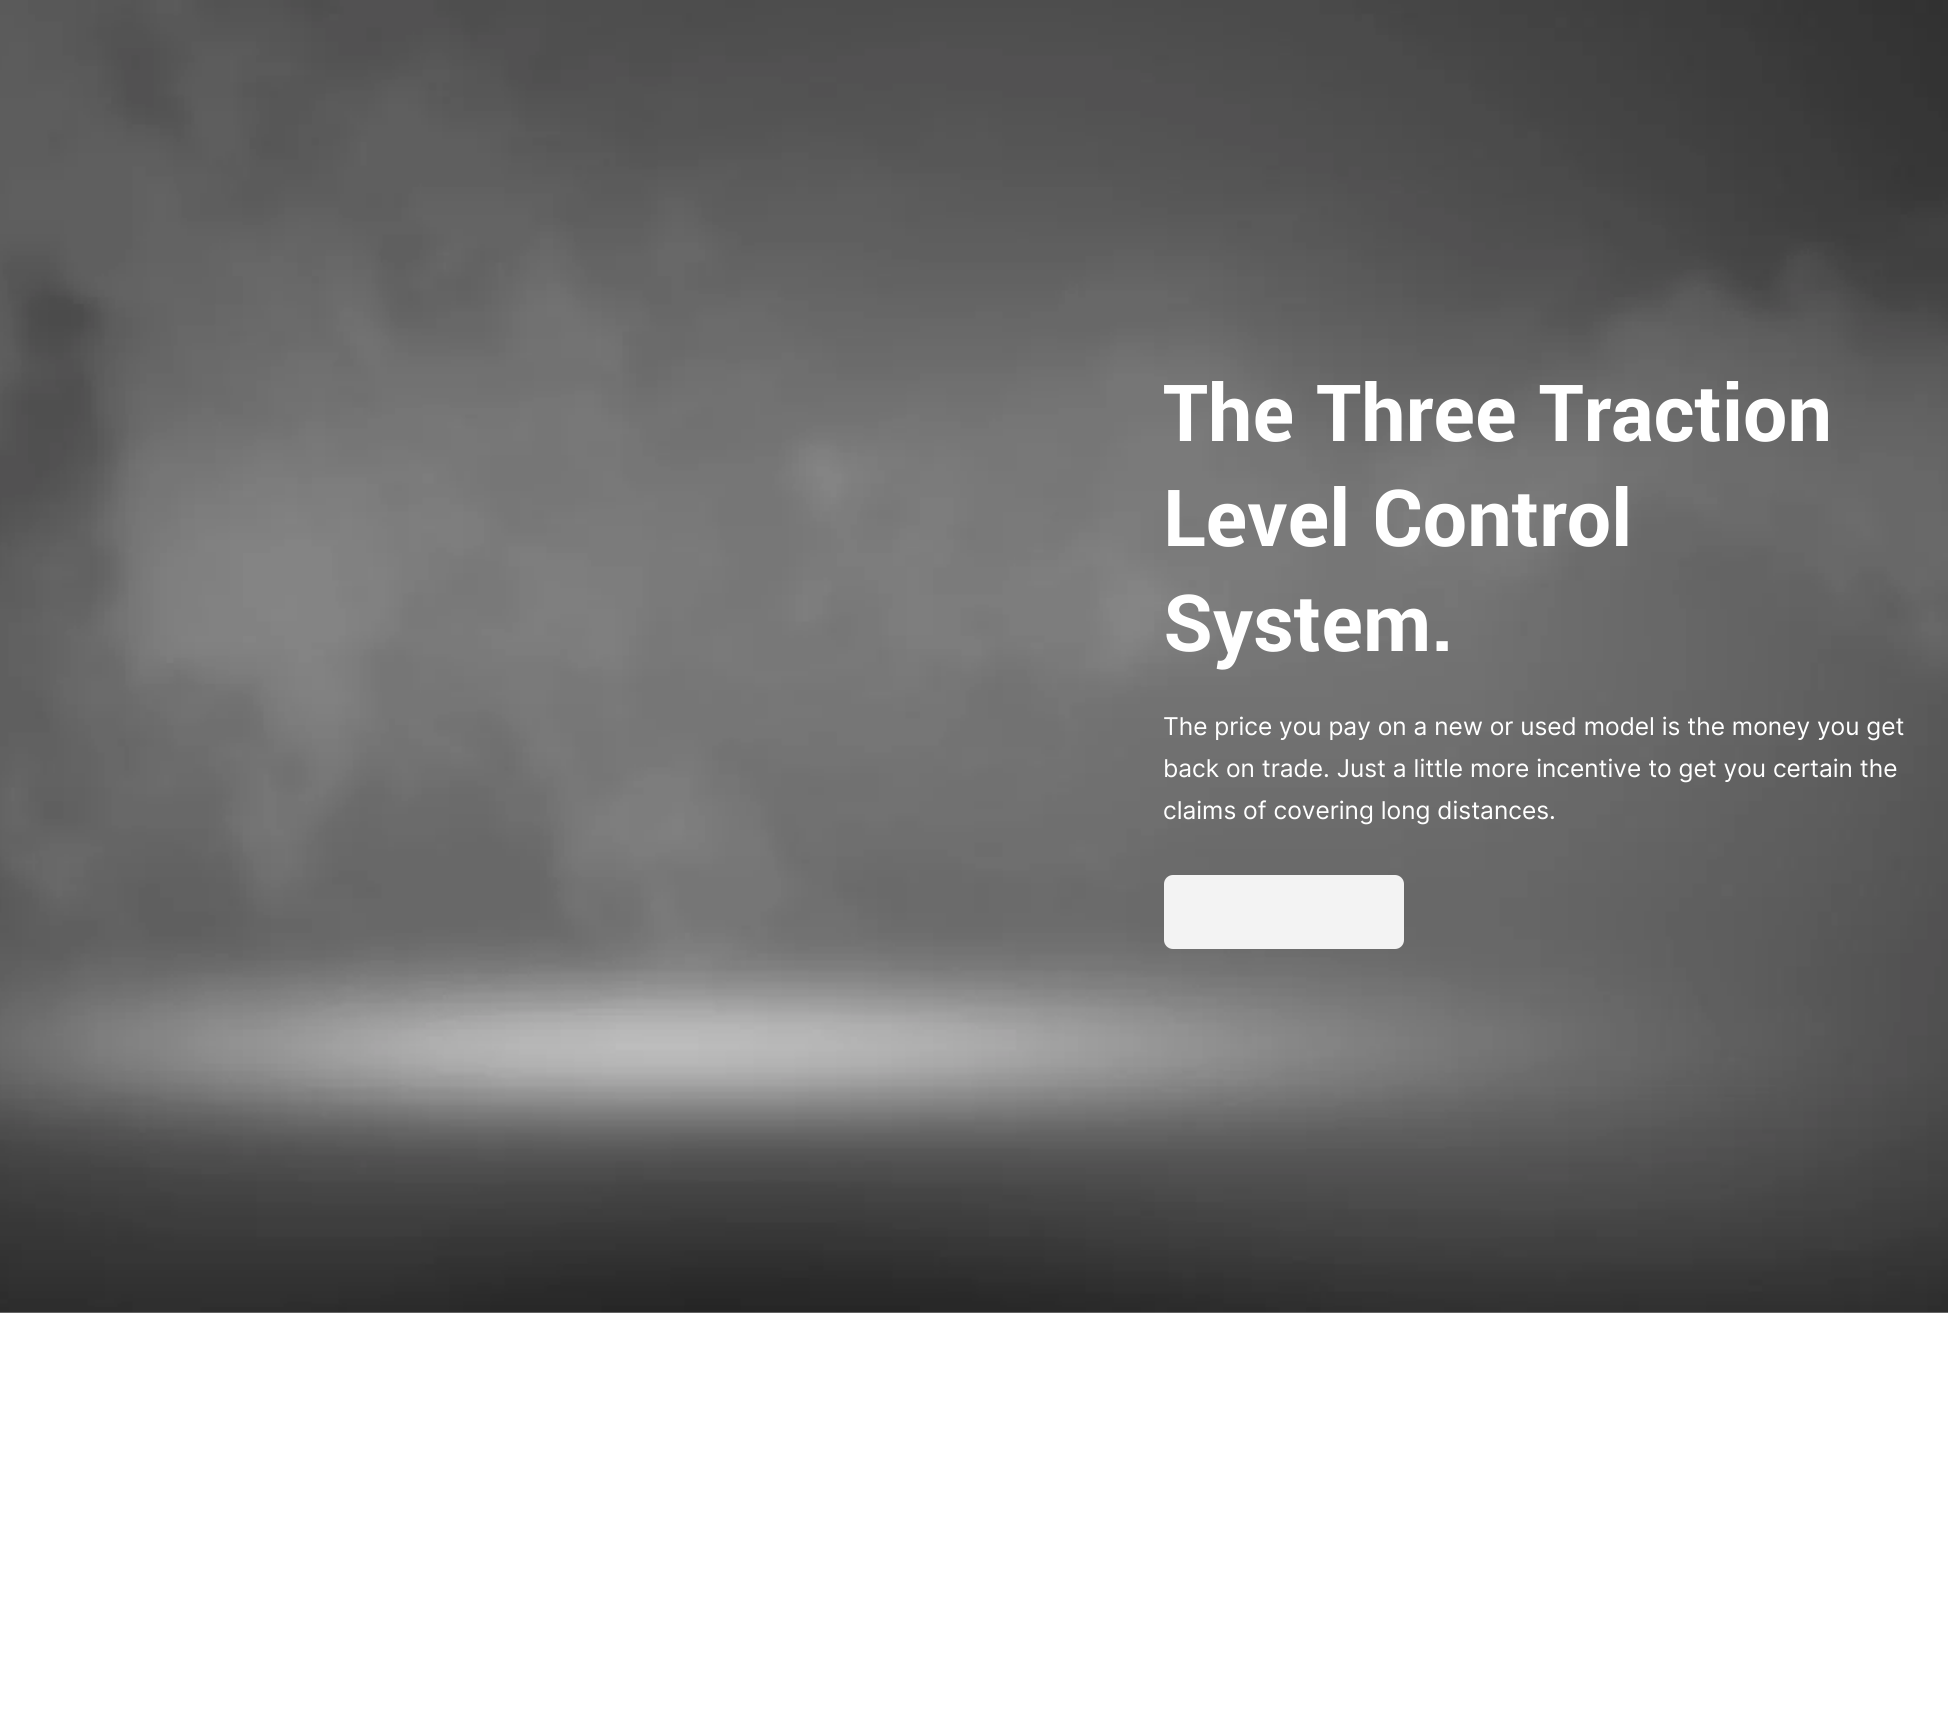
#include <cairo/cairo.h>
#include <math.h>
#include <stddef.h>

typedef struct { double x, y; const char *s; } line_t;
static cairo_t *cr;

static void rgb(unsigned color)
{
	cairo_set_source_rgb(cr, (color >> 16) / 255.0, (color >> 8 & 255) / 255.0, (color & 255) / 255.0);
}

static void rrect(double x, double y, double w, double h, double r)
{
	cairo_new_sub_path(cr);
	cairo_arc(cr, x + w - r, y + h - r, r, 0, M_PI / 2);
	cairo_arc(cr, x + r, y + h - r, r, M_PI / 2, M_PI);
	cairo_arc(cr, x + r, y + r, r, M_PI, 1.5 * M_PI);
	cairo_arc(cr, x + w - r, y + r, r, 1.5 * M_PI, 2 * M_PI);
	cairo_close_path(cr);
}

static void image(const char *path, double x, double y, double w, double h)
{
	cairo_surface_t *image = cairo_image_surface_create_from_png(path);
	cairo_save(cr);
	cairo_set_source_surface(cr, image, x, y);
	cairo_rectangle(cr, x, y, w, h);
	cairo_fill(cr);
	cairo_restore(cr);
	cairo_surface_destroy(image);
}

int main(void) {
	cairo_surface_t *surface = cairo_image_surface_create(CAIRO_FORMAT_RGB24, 1948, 1725);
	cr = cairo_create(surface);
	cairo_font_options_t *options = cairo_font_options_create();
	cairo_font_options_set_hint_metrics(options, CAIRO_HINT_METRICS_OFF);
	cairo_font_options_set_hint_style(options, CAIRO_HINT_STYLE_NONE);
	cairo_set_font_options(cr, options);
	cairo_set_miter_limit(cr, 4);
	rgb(0xffffff);
	cairo_paint(cr);
	rgb(0x777777);
	cairo_rectangle(cr, 0, 1312, 1948, 1);
	cairo_fill(cr);
	image("img/1.png", 0, 0, 1948, 1313);
	rgb(0xf3f3f3);
	rrect(1164, 875, 240, 74, 9);
	cairo_fill(cr);
	cairo_select_font_face(cr, "Yantramanav", CAIRO_FONT_SLANT_NORMAL, CAIRO_FONT_WEIGHT_BOLD);
	cairo_set_font_size(cr, 87.5);
	rgb(0xffffff);
	{
		static const line_t items[] = {
			{1163, 441, "The Three Traction"},
			{1163, 546, "Level Control"},
			{1163, 651, "System."},
		};
		for (size_t i = 0; i < sizeof items / sizeof *items; i++) {
			cairo_move_to(cr, items[i].x, items[i].y);
			cairo_show_text(cr, items[i].s);
		}
	}
	cairo_select_font_face(cr, "Inter", CAIRO_FONT_SLANT_NORMAL, CAIRO_FONT_WEIGHT_NORMAL);
	cairo_set_font_size(cr, 24.5);
	{
		static const line_t items[] = {
			{1163, 735, "The price you pay on a new or used model is the money you get"},
			{1163, 777, "back on trade. Just a little more incentive to get you certain the"},
			{1163, 819, "claims of covering long distances."},
		};
		for (size_t i = 0; i < sizeof items / sizeof *items; i++) {
			cairo_move_to(cr, items[i].x, items[i].y);
			cairo_show_text(cr, items[i].s);
		}
	}
	cairo_surface_write_to_png(surface, "page.png");
	cairo_font_options_destroy(options);
	cairo_destroy(cr);
	cairo_surface_destroy(surface);
	return 0;
}
